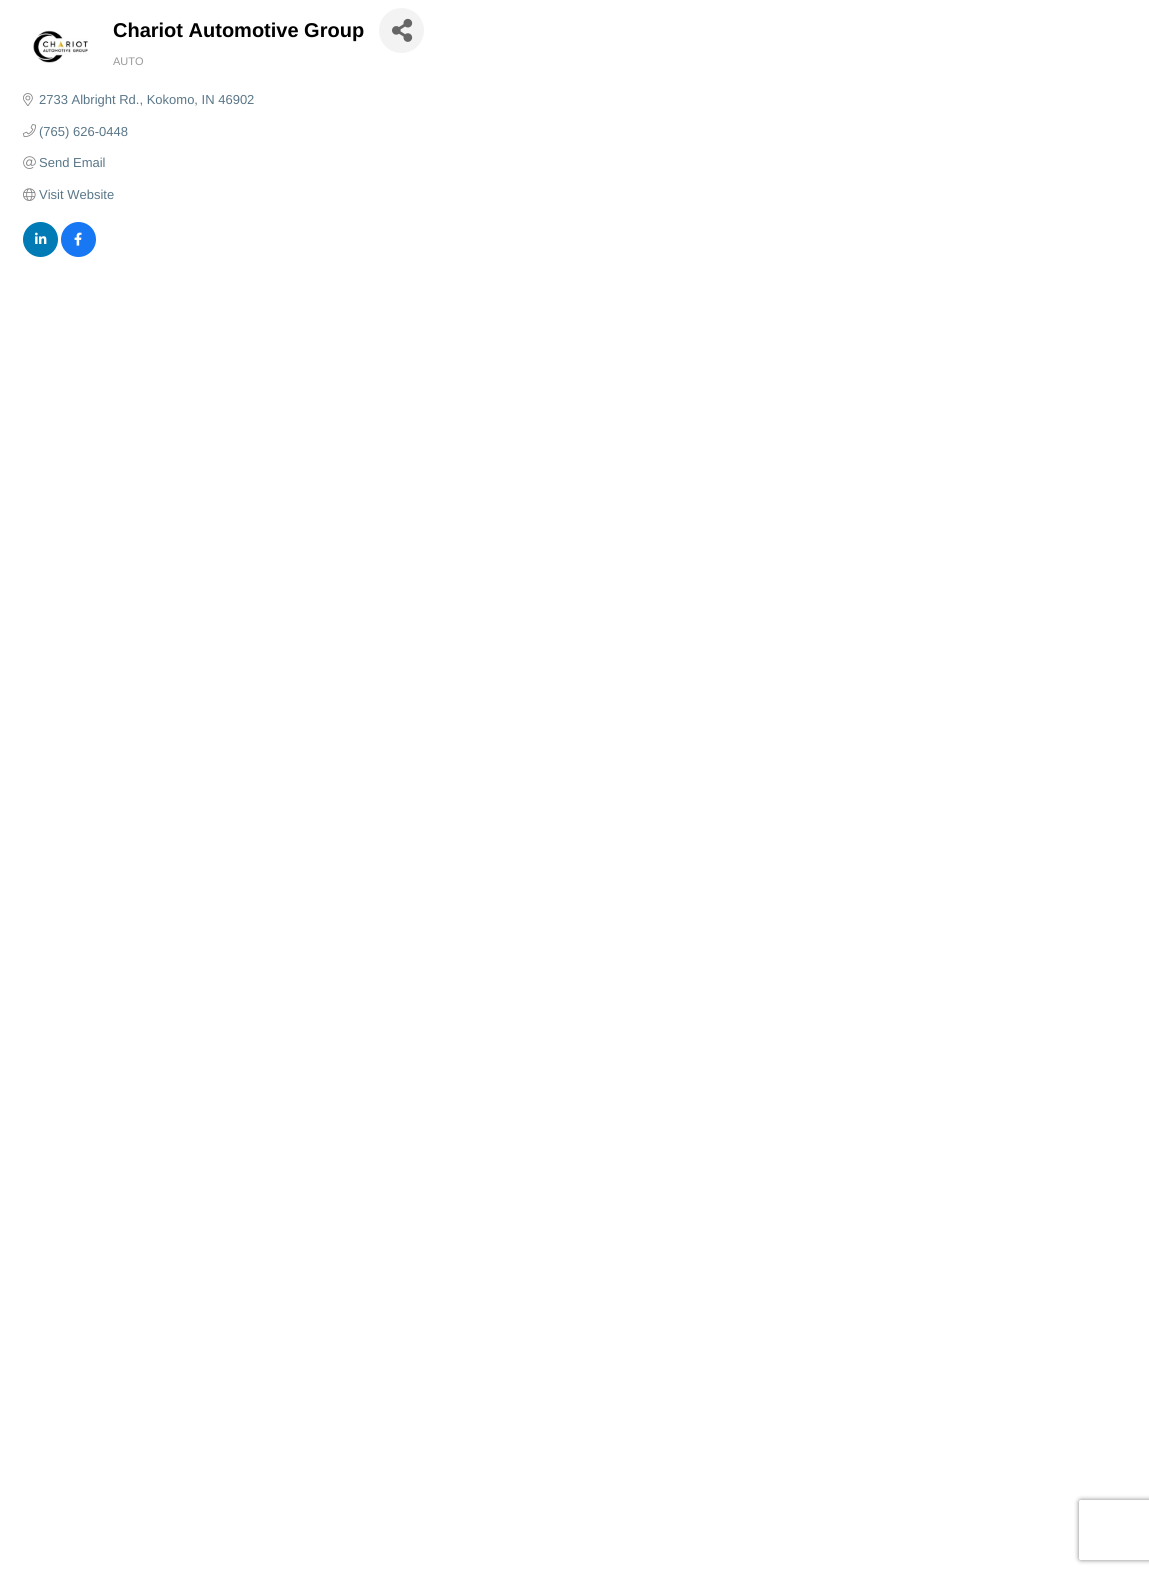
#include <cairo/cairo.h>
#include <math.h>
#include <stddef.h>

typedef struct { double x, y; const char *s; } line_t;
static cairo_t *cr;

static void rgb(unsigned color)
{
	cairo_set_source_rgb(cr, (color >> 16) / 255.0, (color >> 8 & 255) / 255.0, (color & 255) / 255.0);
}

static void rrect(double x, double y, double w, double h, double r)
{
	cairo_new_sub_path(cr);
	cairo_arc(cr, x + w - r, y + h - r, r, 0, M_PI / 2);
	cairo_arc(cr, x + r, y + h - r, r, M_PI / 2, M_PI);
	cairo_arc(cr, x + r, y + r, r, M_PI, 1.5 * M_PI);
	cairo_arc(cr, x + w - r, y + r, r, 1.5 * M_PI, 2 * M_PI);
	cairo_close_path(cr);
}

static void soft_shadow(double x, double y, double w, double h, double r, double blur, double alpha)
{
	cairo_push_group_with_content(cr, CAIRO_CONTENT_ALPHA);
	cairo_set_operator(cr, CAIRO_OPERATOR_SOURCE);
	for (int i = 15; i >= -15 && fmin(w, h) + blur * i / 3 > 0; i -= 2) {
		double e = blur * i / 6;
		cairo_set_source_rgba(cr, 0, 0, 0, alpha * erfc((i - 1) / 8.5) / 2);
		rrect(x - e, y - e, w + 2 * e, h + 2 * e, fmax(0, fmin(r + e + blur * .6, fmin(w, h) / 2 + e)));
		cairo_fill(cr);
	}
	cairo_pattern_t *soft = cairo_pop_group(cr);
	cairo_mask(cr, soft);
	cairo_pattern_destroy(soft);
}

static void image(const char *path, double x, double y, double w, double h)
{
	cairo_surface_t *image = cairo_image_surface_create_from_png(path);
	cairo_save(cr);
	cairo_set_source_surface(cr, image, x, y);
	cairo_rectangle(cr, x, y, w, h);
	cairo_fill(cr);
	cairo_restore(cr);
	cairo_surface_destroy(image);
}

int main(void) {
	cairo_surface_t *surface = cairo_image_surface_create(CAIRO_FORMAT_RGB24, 1149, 1574);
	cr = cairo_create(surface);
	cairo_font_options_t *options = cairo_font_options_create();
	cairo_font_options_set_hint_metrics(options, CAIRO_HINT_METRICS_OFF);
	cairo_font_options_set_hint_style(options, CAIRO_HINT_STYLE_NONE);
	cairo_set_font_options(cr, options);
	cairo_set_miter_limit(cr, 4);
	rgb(0xffffff);
	cairo_paint(cr);
	image("img/1.png", 33, 30, 56, 33);
	rgb(0xf3f3f3);
	cairo_arc(cr, 401.5, 30.5, 22.5, 0, 2 * M_PI);
	cairo_fill(cr);
	image("img/2.png", 392, 18, 21, 24);
	image("img/3.png", 23, 93, 10, 13);
	image("img/4.png", 23, 124, 13, 14);
	image("img/5.png", 23, 156, 13, 13);
	image("img/6.png", 23, 188, 13, 13);
	rgb(0x007bb5);
	cairo_arc(cr, 40.5, 239.5, 17.5, 0, 2 * M_PI);
	cairo_fill(cr);
	image("img/7.png", 35, 232, 12, 12);
	rgb(0x1877f2);
	cairo_arc(cr, 78.5, 239.5, 17.5, 0, 2 * M_PI);
	cairo_fill(cr);
	image("img/8.png", 74, 232, 8, 14);
	cairo_save(cr);
	cairo_set_fill_rule(cr, CAIRO_FILL_RULE_EVEN_ODD);
	cairo_new_path(cr);
	cairo_move_to(cr, 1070, 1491);
	cairo_line_to(cr, 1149, 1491);
	cairo_line_to(cr, 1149, 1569);
	cairo_line_to(cr, 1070, 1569);
	cairo_close_path(cr);
	cairo_move_to(cr, 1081, 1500);
	cairo_line_to(cr, 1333, 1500);
	cairo_curve_to(cr, 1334, 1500, 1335, 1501, 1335, 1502);
	cairo_line_to(cr, 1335, 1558);
	cairo_curve_to(cr, 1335, 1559, 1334, 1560, 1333, 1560);
	cairo_line_to(cr, 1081, 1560);
	cairo_curve_to(cr, 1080, 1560, 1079, 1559, 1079, 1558);
	cairo_line_to(cr, 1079, 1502);
	cairo_curve_to(cr, 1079, 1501, 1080, 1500, 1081, 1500);
	cairo_close_path(cr);
	cairo_clip(cr);
	rgb(0x808080);
	soft_shadow(1079, 1500, 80, 60, 2, 2.5, 1);
	cairo_restore(cr);
	cairo_select_font_face(cr, "Liberation Sans", CAIRO_FONT_SLANT_NORMAL, CAIRO_FONT_WEIGHT_BOLD);
	cairo_set_font_size(cr, 20);
	rgb(0x000000);
	cairo_move_to(cr, 113, 37);
	cairo_show_text(cr, "Chariot Automotive Group");
	cairo_select_font_face(cr, "Liberation Sans", CAIRO_FONT_SLANT_NORMAL, CAIRO_FONT_WEIGHT_NORMAL);
	cairo_set_font_size(cr, 11);
	rgb(0x999999);
	cairo_move_to(cr, 113, 65);
	cairo_show_text(cr, "AUTO");
	cairo_set_font_size(cr, 13);
	rgb(0x597688);
	{
		static const line_t items[] = {
			{39, 104, "2733 Albright Rd., Kokomo, IN 46902"},
			{39, 136, "(765) 626-0448"},
			{39, 167, "Send Email"},
			{39, 199, "Visit Website"},
		};
		for (size_t i = 0; i < sizeof items / sizeof *items; i++) {
			cairo_move_to(cr, items[i].x, items[i].y);
			cairo_show_text(cr, items[i].s);
		}
	}
	cairo_surface_write_to_png(surface, "page.png");
	cairo_font_options_destroy(options);
	cairo_destroy(cr);
	cairo_surface_destroy(surface);
	return 0;
}
